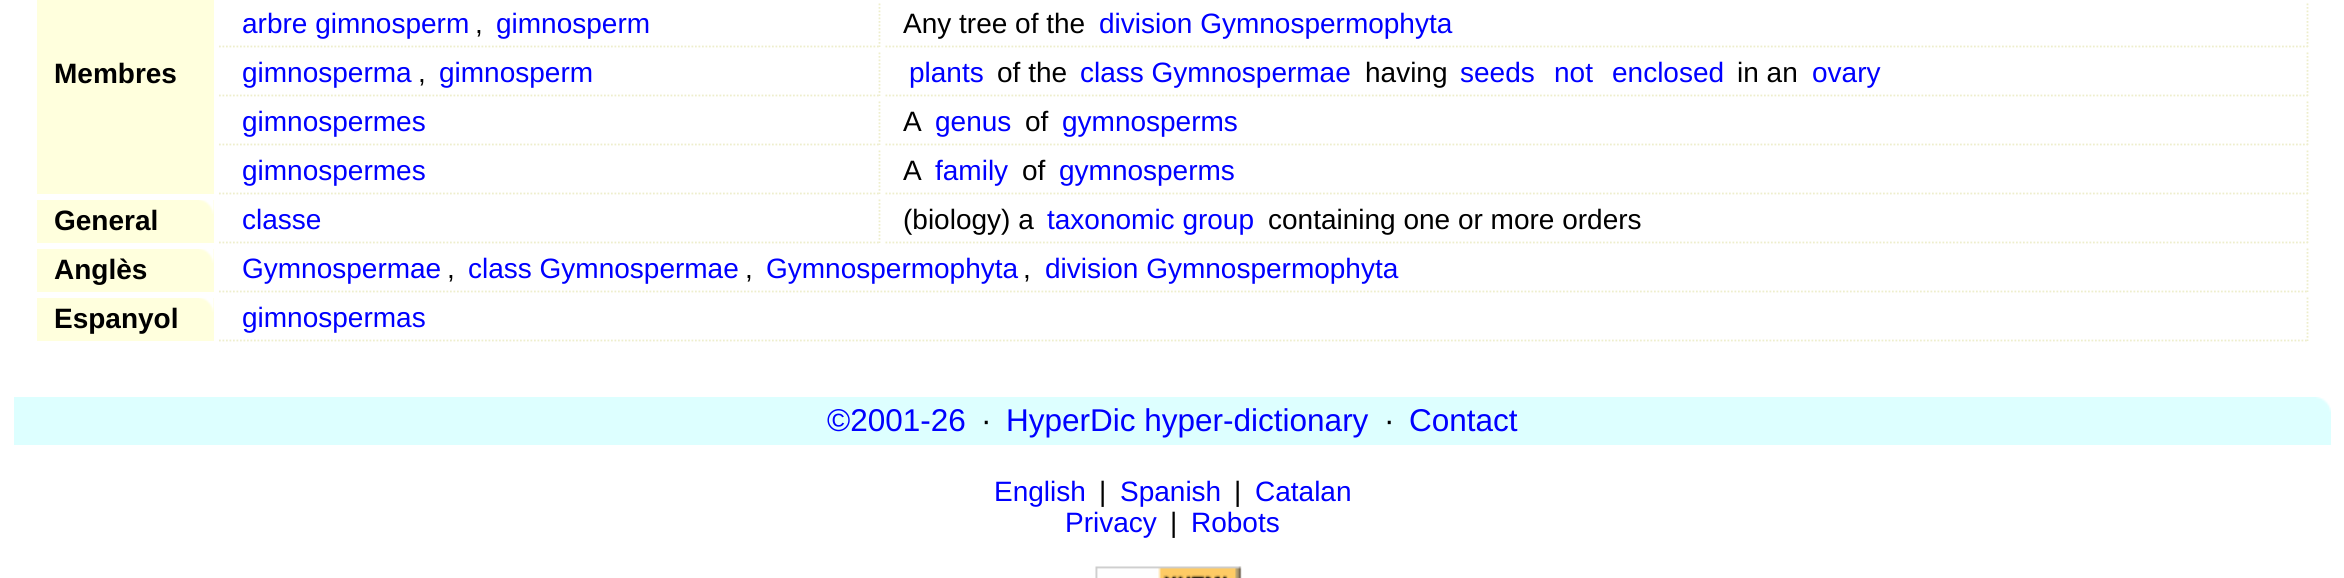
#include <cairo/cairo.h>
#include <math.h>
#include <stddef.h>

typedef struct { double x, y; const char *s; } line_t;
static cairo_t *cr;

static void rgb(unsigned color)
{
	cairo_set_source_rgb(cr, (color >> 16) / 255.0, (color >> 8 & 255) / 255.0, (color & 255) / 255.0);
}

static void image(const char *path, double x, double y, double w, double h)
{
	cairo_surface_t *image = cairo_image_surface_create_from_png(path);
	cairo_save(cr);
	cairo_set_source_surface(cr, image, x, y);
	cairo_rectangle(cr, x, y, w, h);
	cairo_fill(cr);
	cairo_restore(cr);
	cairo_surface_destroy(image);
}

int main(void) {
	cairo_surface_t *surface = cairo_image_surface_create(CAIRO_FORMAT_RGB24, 2344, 578);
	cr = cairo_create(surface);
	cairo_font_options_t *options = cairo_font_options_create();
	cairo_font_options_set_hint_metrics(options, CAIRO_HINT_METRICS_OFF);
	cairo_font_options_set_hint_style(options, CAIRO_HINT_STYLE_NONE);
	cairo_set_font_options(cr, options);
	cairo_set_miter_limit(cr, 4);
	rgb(0xffffff);
	cairo_paint(cr);
	cairo_new_path(cr);
	cairo_move_to(cr, 879.5, 3.5);
	cairo_line_to(cr, 879.5, 47);
	rgb(0xeeeecc);
	cairo_set_line_width(cr, 1.8);
	cairo_set_dash(cr, (double[]){1.75, 1.75}, 2, 0);
	cairo_stroke(cr);
	cairo_new_path(cr);
	cairo_move_to(cr, 219, 46.5);
	cairo_line_to(cr, 880, 46.5);
	cairo_stroke(cr);
	cairo_new_path(cr);
	cairo_move_to(cr, 2307.5, 3.5);
	cairo_line_to(cr, 2307.5, 47);
	cairo_stroke(cr);
	cairo_new_path(cr);
	cairo_move_to(cr, 885.5, 46.5);
	cairo_line_to(cr, 2308, 46.5);
	cairo_stroke(cr);
	rgb(0xffffdd);
	cairo_rectangle(cr, 37, 0, 177, 194);
	cairo_fill(cr);
	cairo_new_path(cr);
	cairo_move_to(cr, 879.5, 52.5);
	cairo_line_to(cr, 879.5, 96);
	rgb(0xeeeecc);
	cairo_stroke(cr);
	cairo_new_path(cr);
	cairo_move_to(cr, 219, 95.5);
	cairo_line_to(cr, 880, 95.5);
	cairo_stroke(cr);
	cairo_new_path(cr);
	cairo_move_to(cr, 2307.5, 52.5);
	cairo_line_to(cr, 2307.5, 96);
	cairo_stroke(cr);
	cairo_new_path(cr);
	cairo_move_to(cr, 885.5, 95.5);
	cairo_line_to(cr, 2308, 95.5);
	cairo_stroke(cr);
	cairo_new_path(cr);
	cairo_move_to(cr, 879.5, 101.5);
	cairo_line_to(cr, 879.5, 145);
	cairo_stroke(cr);
	cairo_new_path(cr);
	cairo_move_to(cr, 219, 144.5);
	cairo_line_to(cr, 880, 144.5);
	cairo_stroke(cr);
	cairo_new_path(cr);
	cairo_move_to(cr, 2307.5, 101.5);
	cairo_line_to(cr, 2307.5, 145);
	cairo_stroke(cr);
	cairo_new_path(cr);
	cairo_move_to(cr, 885.5, 144.5);
	cairo_line_to(cr, 2308, 144.5);
	cairo_stroke(cr);
	cairo_new_path(cr);
	cairo_move_to(cr, 879.5, 150.5);
	cairo_line_to(cr, 879.5, 194);
	cairo_stroke(cr);
	cairo_new_path(cr);
	cairo_move_to(cr, 219, 193.5);
	cairo_line_to(cr, 880, 193.5);
	cairo_stroke(cr);
	cairo_new_path(cr);
	cairo_move_to(cr, 2307.5, 150.5);
	cairo_line_to(cr, 2307.5, 194);
	cairo_stroke(cr);
	cairo_new_path(cr);
	cairo_move_to(cr, 885.5, 193.5);
	cairo_line_to(cr, 2308, 193.5);
	cairo_stroke(cr);
	rgb(0xffffdd);
	cairo_rectangle(cr, 37, 200, 177, 43);
	cairo_fill(cr);
	image("img/1.png", 199, 200, 15, 14);
	cairo_new_path(cr);
	cairo_move_to(cr, 879.5, 199.5);
	cairo_line_to(cr, 879.5, 243);
	rgb(0xeeeecc);
	cairo_stroke(cr);
	cairo_new_path(cr);
	cairo_move_to(cr, 219, 242.5);
	cairo_line_to(cr, 880, 242.5);
	cairo_stroke(cr);
	cairo_new_path(cr);
	cairo_move_to(cr, 2307.5, 199.5);
	cairo_line_to(cr, 2307.5, 243);
	cairo_stroke(cr);
	cairo_new_path(cr);
	cairo_move_to(cr, 885.5, 242.5);
	cairo_line_to(cr, 2308, 242.5);
	cairo_stroke(cr);
	rgb(0xffffdd);
	cairo_rectangle(cr, 37, 249, 177, 43);
	cairo_fill(cr);
	image("img/1.png", 199, 249, 15, 14);
	cairo_new_path(cr);
	cairo_move_to(cr, 2307.5, 248.5);
	cairo_line_to(cr, 2307.5, 292);
	rgb(0xeeeecc);
	cairo_stroke(cr);
	cairo_new_path(cr);
	cairo_move_to(cr, 219, 291.5);
	cairo_line_to(cr, 2308, 291.5);
	cairo_stroke(cr);
	rgb(0xffffdd);
	cairo_rectangle(cr, 37, 298, 177, 43);
	cairo_fill(cr);
	image("img/1.png", 199, 298, 15, 14);
	cairo_new_path(cr);
	cairo_move_to(cr, 2307.5, 297.5);
	cairo_line_to(cr, 2307.5, 341);
	rgb(0xeeeecc);
	cairo_stroke(cr);
	cairo_new_path(cr);
	cairo_move_to(cr, 219, 340.5);
	cairo_line_to(cr, 2308, 340.5);
	cairo_stroke(cr);
	rgb(0xddffff);
	cairo_rectangle(cr, 14, 397, 2317, 48);
	cairo_fill(cr);
	image("img/2.png", 2316, 397, 15, 15);
	image("img/3.png", 1095, 566, 147, 12);
	cairo_select_font_face(cr, "Liberation Sans", CAIRO_FONT_SLANT_NORMAL, CAIRO_FONT_WEIGHT_NORMAL);
	cairo_set_font_size(cr, 28);
	rgb(0x0000ff);
	cairo_move_to(cr, 242, 33);
	cairo_show_text(cr, "arbre gimnosperm");
	rgb(0x000000);
	cairo_move_to(cr, 475, 33);
	cairo_show_text(cr, ",");
	rgb(0x0000ff);
	cairo_move_to(cr, 496, 33);
	cairo_show_text(cr, "gimnosperm");
	rgb(0x000000);
	cairo_move_to(cr, 903, 33);
	cairo_show_text(cr, "Any tree of the");
	rgb(0x0000ff);
	cairo_move_to(cr, 1099, 33);
	cairo_show_text(cr, "division Gymnospermophyta");
	cairo_select_font_face(cr, "Liberation Sans", CAIRO_FONT_SLANT_NORMAL, CAIRO_FONT_WEIGHT_BOLD);
	rgb(0x000000);
	cairo_move_to(cr, 54, 83);
	cairo_show_text(cr, "Membres");
	cairo_select_font_face(cr, "Liberation Sans", CAIRO_FONT_SLANT_NORMAL, CAIRO_FONT_WEIGHT_NORMAL);
	rgb(0x0000ff);
	cairo_move_to(cr, 242, 82);
	cairo_show_text(cr, "gimnosperma");
	rgb(0x000000);
	cairo_move_to(cr, 418, 82);
	cairo_show_text(cr, ",");
	rgb(0x0000ff);
	cairo_move_to(cr, 439, 82);
	cairo_show_text(cr, "gimnosperm");
	cairo_move_to(cr, 909, 82);
	cairo_show_text(cr, "plants");
	rgb(0x000000);
	cairo_move_to(cr, 997, 82);
	cairo_show_text(cr, "of the");
	rgb(0x0000ff);
	cairo_move_to(cr, 1080, 82);
	cairo_show_text(cr, "class Gymnospermae");
	rgb(0x000000);
	cairo_move_to(cr, 1365, 82);
	cairo_show_text(cr, "having");
	rgb(0x0000ff);
	{
		static const line_t items[] = {
			{1460, 82, "seeds"},
			{1554, 82, "not"},
			{1612, 82, "enclosed"},
		};
		for (size_t i = 0; i < sizeof items / sizeof *items; i++) {
			cairo_move_to(cr, items[i].x, items[i].y);
			cairo_show_text(cr, items[i].s);
		}
	}
	rgb(0x000000);
	cairo_move_to(cr, 1737, 82);
	cairo_show_text(cr, "in an");
	rgb(0x0000ff);
	cairo_move_to(cr, 1812, 82);
	cairo_show_text(cr, "ovary");
	cairo_move_to(cr, 242, 131);
	cairo_show_text(cr, "gimnospermes");
	rgb(0x000000);
	cairo_move_to(cr, 903, 131);
	cairo_show_text(cr, "A");
	rgb(0x0000ff);
	cairo_move_to(cr, 935, 131);
	cairo_show_text(cr, "genus");
	rgb(0x000000);
	cairo_move_to(cr, 1025, 131);
	cairo_show_text(cr, "of");
	rgb(0x0000ff);
	cairo_move_to(cr, 1062, 131);
	cairo_show_text(cr, "gymnosperms");
	cairo_move_to(cr, 242, 180);
	cairo_show_text(cr, "gimnospermes");
	rgb(0x000000);
	cairo_move_to(cr, 903, 180);
	cairo_show_text(cr, "A");
	rgb(0x0000ff);
	cairo_move_to(cr, 935, 180);
	cairo_show_text(cr, "family");
	rgb(0x000000);
	cairo_move_to(cr, 1022, 180);
	cairo_show_text(cr, "of");
	rgb(0x0000ff);
	cairo_move_to(cr, 1059, 180);
	cairo_show_text(cr, "gymnosperms");
	cairo_select_font_face(cr, "Liberation Sans", CAIRO_FONT_SLANT_NORMAL, CAIRO_FONT_WEIGHT_BOLD);
	rgb(0x000000);
	cairo_move_to(cr, 54, 230);
	cairo_show_text(cr, "General");
	cairo_select_font_face(cr, "Liberation Sans", CAIRO_FONT_SLANT_NORMAL, CAIRO_FONT_WEIGHT_NORMAL);
	rgb(0x0000ff);
	cairo_move_to(cr, 242, 229);
	cairo_show_text(cr, "classe");
	rgb(0x000000);
	cairo_move_to(cr, 903, 229);
	cairo_show_text(cr, "(biology) a");
	rgb(0x0000ff);
	cairo_move_to(cr, 1047, 229);
	cairo_show_text(cr, "taxonomic group");
	rgb(0x000000);
	cairo_move_to(cr, 1268, 229);
	cairo_show_text(cr, "containing one or more orders");
	cairo_select_font_face(cr, "Liberation Sans", CAIRO_FONT_SLANT_NORMAL, CAIRO_FONT_WEIGHT_BOLD);
	cairo_move_to(cr, 54, 279);
	cairo_show_text(cr, "Anglès");
	cairo_select_font_face(cr, "Liberation Sans", CAIRO_FONT_SLANT_NORMAL, CAIRO_FONT_WEIGHT_NORMAL);
	rgb(0x0000ff);
	cairo_move_to(cr, 242, 278);
	cairo_show_text(cr, "Gymnospermae");
	rgb(0x000000);
	cairo_move_to(cr, 447, 278);
	cairo_show_text(cr, ",");
	rgb(0x0000ff);
	cairo_move_to(cr, 468, 278);
	cairo_show_text(cr, "class Gymnospermae");
	rgb(0x000000);
	cairo_move_to(cr, 745, 278);
	cairo_show_text(cr, ",");
	rgb(0x0000ff);
	cairo_move_to(cr, 766, 278);
	cairo_show_text(cr, "Gymnospermophyta");
	rgb(0x000000);
	cairo_move_to(cr, 1023, 278);
	cairo_show_text(cr, ",");
	rgb(0x0000ff);
	cairo_move_to(cr, 1045, 278);
	cairo_show_text(cr, "division Gymnospermophyta");
	cairo_select_font_face(cr, "Liberation Sans", CAIRO_FONT_SLANT_NORMAL, CAIRO_FONT_WEIGHT_BOLD);
	rgb(0x000000);
	cairo_move_to(cr, 54, 328);
	cairo_show_text(cr, "Espanyol");
	cairo_select_font_face(cr, "Liberation Sans", CAIRO_FONT_SLANT_NORMAL, CAIRO_FONT_WEIGHT_NORMAL);
	rgb(0x0000ff);
	cairo_move_to(cr, 242, 327);
	cairo_show_text(cr, "gimnospermas");
	cairo_set_font_size(cr, 31.5);
	cairo_move_to(cr, 827, 431);
	cairo_show_text(cr, "©2001-26");
	rgb(0x000000);
	cairo_move_to(cr, 981, 431);
	cairo_show_text(cr, "·");
	rgb(0x0000ff);
	cairo_move_to(cr, 1006, 431);
	cairo_show_text(cr, "HyperDic hyper-dictionary");
	rgb(0x000000);
	cairo_move_to(cr, 1384, 431);
	cairo_show_text(cr, "·");
	rgb(0x0000ff);
	cairo_move_to(cr, 1409, 431);
	cairo_show_text(cr, "Contact");
	cairo_set_font_size(cr, 28);
	cairo_move_to(cr, 994, 501);
	cairo_show_text(cr, "English");
	rgb(0x000000);
	cairo_move_to(cr, 1099, 501);
	cairo_show_text(cr, "|");
	rgb(0x0000ff);
	cairo_move_to(cr, 1120, 501);
	cairo_show_text(cr, "Spanish");
	rgb(0x000000);
	cairo_move_to(cr, 1234, 501);
	cairo_show_text(cr, "|");
	rgb(0x0000ff);
	cairo_move_to(cr, 1255, 501);
	cairo_show_text(cr, "Catalan");
	cairo_move_to(cr, 1065, 532);
	cairo_show_text(cr, "Privacy");
	rgb(0x000000);
	cairo_move_to(cr, 1170, 532);
	cairo_show_text(cr, "|");
	rgb(0x0000ff);
	cairo_move_to(cr, 1191, 532);
	cairo_show_text(cr, "Robots");
	cairo_surface_write_to_png(surface, "page.png");
	cairo_font_options_destroy(options);
	cairo_destroy(cr);
	cairo_surface_destroy(surface);
	return 0;
}
